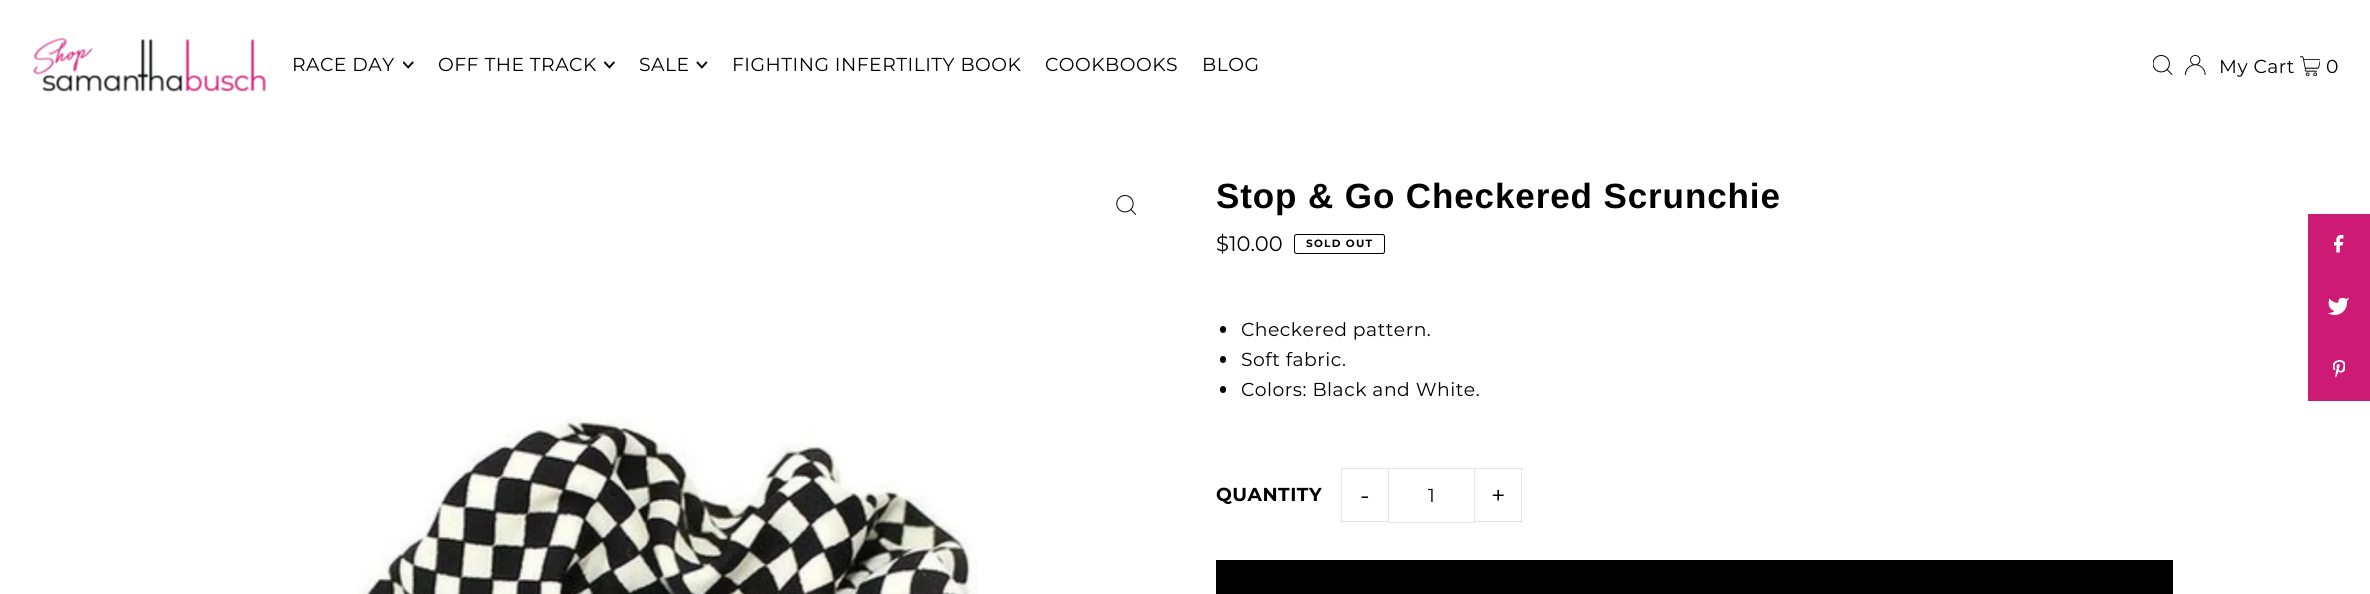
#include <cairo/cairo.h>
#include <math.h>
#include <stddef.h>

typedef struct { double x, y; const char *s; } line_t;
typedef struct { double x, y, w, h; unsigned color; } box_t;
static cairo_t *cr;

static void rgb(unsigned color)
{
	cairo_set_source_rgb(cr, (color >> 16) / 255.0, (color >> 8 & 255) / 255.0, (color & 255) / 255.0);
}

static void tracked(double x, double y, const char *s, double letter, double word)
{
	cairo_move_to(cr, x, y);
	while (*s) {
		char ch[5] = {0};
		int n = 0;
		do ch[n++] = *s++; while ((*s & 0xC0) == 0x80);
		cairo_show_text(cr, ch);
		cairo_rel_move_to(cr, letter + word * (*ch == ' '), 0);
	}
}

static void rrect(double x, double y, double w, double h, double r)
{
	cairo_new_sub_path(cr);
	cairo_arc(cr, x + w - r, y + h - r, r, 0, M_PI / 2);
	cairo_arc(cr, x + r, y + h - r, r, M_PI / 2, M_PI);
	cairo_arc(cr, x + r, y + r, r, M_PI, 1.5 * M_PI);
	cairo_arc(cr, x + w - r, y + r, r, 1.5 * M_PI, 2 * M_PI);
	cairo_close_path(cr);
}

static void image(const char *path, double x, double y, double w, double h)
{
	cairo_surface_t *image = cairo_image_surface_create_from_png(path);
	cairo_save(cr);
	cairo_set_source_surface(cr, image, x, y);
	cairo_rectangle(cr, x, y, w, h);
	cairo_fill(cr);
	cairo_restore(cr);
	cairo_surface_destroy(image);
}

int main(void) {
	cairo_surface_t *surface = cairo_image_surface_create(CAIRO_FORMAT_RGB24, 2370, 594);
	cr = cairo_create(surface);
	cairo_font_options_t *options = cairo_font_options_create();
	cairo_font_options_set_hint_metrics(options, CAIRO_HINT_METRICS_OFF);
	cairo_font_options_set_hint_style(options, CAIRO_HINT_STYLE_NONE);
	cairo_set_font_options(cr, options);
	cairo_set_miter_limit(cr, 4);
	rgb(0xffffff);
	cairo_paint(cr);
	image("img/1.png", 33, 38, 234, 54);
	image("img/2.png", 403, 61, 11, 8);
	image("img/3.png", 604, 61, 11, 8);
	image("img/4.png", 696, 61, 12, 8);
	image("img/5.png", 2153, 55, 20, 20);
	image("img/6.png", 2185, 55, 21, 20);
	image("img/7.png", 2300, 56, 20, 20);
	image("img/8.png", 1116, 195, 20, 20);
	image("img/9.png", 357, 415, 621, 179);
	rrect(1294.5, 234.5, 90, 19, 2);
	rgb(0x000000);
	cairo_set_line_width(cr, 1);
	cairo_stroke(cr);
	rrect(1220, 326, 6, 7, 3);
	cairo_fill(cr);
	rrect(1220, 356, 6, 7, 3);
	cairo_fill(cr);
	rrect(1220, 386, 6, 7, 3);
	cairo_fill(cr);
	{
		static const box_t items[] = {
			{1341, 468, 48, 1, 0xe5e5e5},
			{1341, 521, 48, 1, 0xe5e5e5},
			{1341, 468, 1, 55, 0xe5e5e5},
		};
		for (size_t i = 0; i < sizeof items / sizeof *items; i++) {
			rgb(items[i].color);
			cairo_rectangle(cr, items[i].x, items[i].y, items[i].w, items[i].h);
			cairo_fill(cr);
		}
	}
	cairo_rectangle(cr, 1388.5, 468.5, 86, 54);
	cairo_stroke(cr);
	{
		static const box_t items[] = {
			{1475, 468, 48, 1, 0xe5e5e5},
			{1521, 468, 1, 55, 0xe5e5e5},
			{1475, 521, 48, 1, 0xe5e5e5},
			{1216, 560, 957, 34, 0x000000},
			{2308, 214, 62, 187, 0xcd1a74},
		};
		for (size_t i = 0; i < sizeof items / sizeof *items; i++) {
			rgb(items[i].color);
			cairo_rectangle(cr, items[i].x, items[i].y, items[i].w, items[i].h);
			cairo_fill(cr);
		}
	}
	image("img/10.png", 2334, 235, 10, 18);
	image("img/11.png", 2328, 298, 21, 17);
	image("img/12.png", 2333, 360, 12, 18);
	cairo_select_font_face(cr, "Montserrat", CAIRO_FONT_SLANT_NORMAL, CAIRO_FONT_WEIGHT_NORMAL);
	cairo_set_font_size(cr, 18.75);
	rgb(0x000000);
	{
		static const line_t items[] = {
			{292, 71, "RACE DAY"},
			{438, 71, "OFF THE TRACK"},
			{639, 71, "SALE"},
			{732, 71, "FIGHTING INFERTILITY BOOK"},
			{1045, 71, "COOKBOOKS"},
			{1202, 71, "BLOG"},
			{2219, 73, "My Cart"},
			{2326, 73, "0"},
		};
		for (size_t i = 0; i < sizeof items / sizeof *items; i++) {
			tracked(items[i].x, items[i].y, items[i].s, 0.5, 0);
		}
	}
	cairo_select_font_face(cr, "Liberation Sans", CAIRO_FONT_SLANT_NORMAL, CAIRO_FONT_WEIGHT_BOLD);
	cairo_set_font_size(cr, 35);
	tracked(1216, 208, "Stop & Go Checkered Scrunchie", 0.9, 0);
	cairo_select_font_face(cr, "Montserrat", CAIRO_FONT_SLANT_NORMAL, CAIRO_FONT_WEIGHT_NORMAL);
	cairo_set_font_size(cr, 21);
	cairo_move_to(cr, 1216, 251);
	cairo_show_text(cr, "$10.00");
	cairo_select_font_face(cr, "Montserrat", CAIRO_FONT_SLANT_NORMAL, CAIRO_FONT_WEIGHT_BOLD);
	cairo_set_font_size(cr, 10.5);
	tracked(1306, 247, "SOLD OUT", 1.25, 0);
	cairo_select_font_face(cr, "Montserrat", CAIRO_FONT_SLANT_NORMAL, CAIRO_FONT_WEIGHT_NORMAL);
	cairo_set_font_size(cr, 18.75);
	{
		static const line_t items[] = {
			{1241, 336, "Checkered pattern."},
			{1241, 366, "Soft fabric."},
			{1241, 396, "Colors: Black and White."},
		};
		for (size_t i = 0; i < sizeof items / sizeof *items; i++) {
			tracked(items[i].x, items[i].y, items[i].s, 0.5, 0);
		}
	}
	cairo_select_font_face(cr, "Montserrat", CAIRO_FONT_SLANT_NORMAL, CAIRO_FONT_WEIGHT_BOLD);
	tracked(1216, 501, "QUANTITY", 0.5, 0);
	cairo_select_font_face(cr, "Montserrat", CAIRO_FONT_SLANT_NORMAL, CAIRO_FONT_WEIGHT_NORMAL);
	cairo_set_font_size(cr, 25);
	tracked(1360, 504, "-", 1, 0);
	cairo_set_font_size(cr, 18.75);
	tracked(1428, 502, "1", 0.5, 0);
	cairo_set_font_size(cr, 25);
	tracked(1491, 504, "+", 1, 0);
	cairo_surface_write_to_png(surface, "page.png");
	cairo_font_options_destroy(options);
	cairo_destroy(cr);
	cairo_surface_destroy(surface);
	return 0;
}
